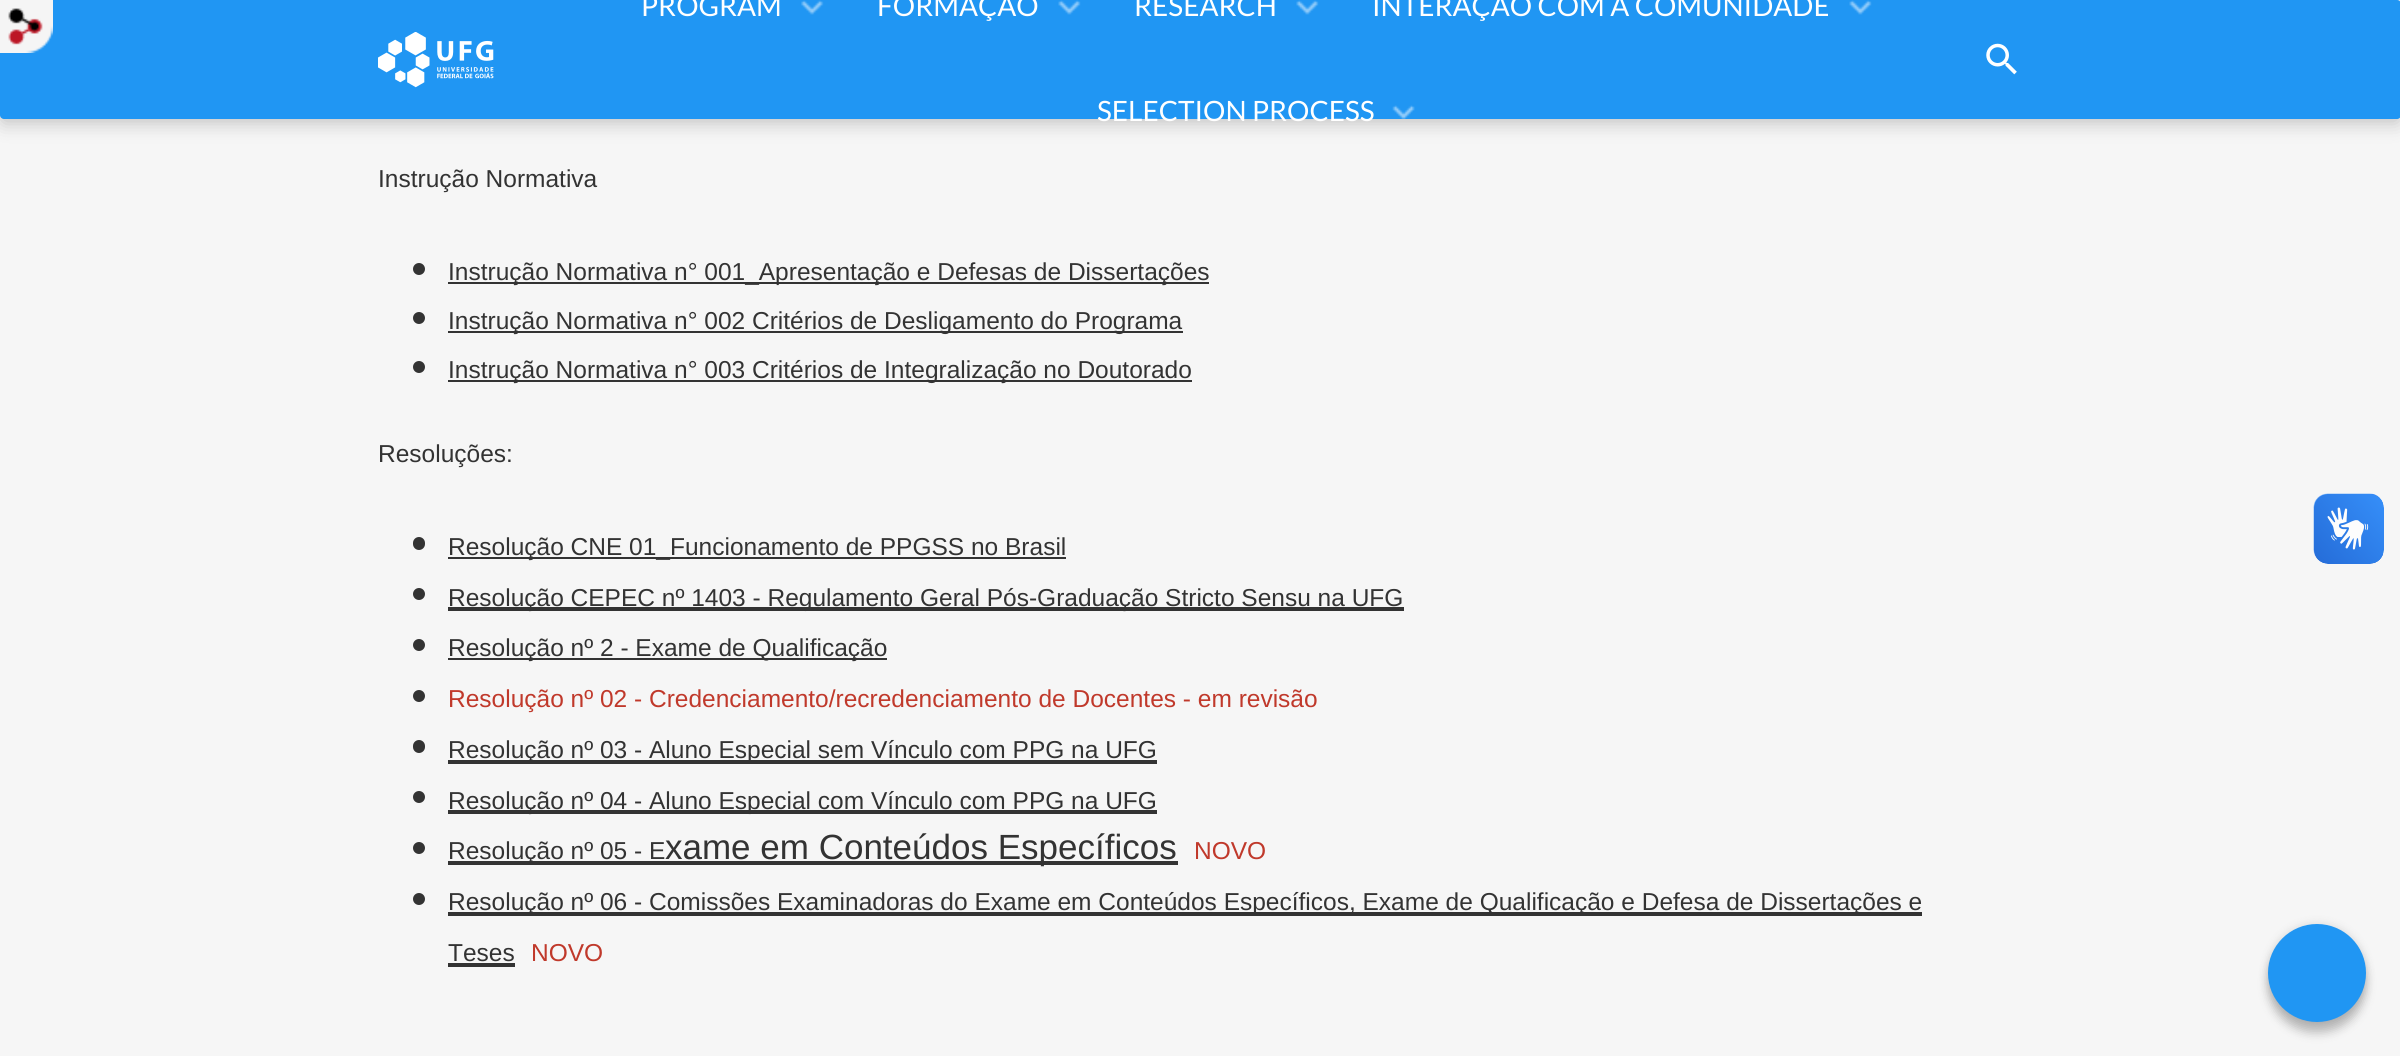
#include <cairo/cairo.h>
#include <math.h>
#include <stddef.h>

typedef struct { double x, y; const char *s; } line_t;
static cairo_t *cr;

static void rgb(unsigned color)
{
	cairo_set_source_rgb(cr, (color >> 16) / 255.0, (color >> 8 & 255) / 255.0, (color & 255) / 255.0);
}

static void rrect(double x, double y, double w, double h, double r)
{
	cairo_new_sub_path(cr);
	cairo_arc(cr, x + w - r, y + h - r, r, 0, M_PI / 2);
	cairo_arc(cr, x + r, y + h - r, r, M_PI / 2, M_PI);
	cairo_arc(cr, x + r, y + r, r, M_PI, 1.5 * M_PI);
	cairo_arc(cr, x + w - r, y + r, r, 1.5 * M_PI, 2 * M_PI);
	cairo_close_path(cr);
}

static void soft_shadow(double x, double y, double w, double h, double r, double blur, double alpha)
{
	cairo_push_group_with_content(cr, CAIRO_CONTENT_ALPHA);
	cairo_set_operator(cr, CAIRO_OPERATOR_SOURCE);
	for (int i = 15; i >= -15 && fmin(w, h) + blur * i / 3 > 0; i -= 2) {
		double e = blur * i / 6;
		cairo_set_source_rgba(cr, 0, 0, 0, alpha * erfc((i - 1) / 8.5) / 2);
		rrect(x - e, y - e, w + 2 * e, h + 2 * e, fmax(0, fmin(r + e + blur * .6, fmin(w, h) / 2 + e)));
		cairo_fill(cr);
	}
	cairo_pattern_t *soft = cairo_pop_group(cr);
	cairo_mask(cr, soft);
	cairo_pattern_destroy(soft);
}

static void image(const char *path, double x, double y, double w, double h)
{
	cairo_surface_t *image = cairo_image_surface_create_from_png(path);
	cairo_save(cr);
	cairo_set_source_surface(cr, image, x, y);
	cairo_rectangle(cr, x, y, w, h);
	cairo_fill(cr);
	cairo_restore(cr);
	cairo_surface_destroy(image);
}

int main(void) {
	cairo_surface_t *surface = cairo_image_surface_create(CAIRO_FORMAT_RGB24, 2400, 1056);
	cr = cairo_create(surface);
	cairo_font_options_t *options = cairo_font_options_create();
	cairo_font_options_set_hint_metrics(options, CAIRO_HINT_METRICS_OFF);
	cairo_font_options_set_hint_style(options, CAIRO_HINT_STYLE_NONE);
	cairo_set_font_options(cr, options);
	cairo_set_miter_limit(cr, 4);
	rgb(0xf6f6f6);
	cairo_paint(cr);
	rgb(0x000000);
	soft_shadow(0, 5, 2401, 119, 4, 9, 0.2);
	rgb(0x2096f3);
	rrect(0, 0, 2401, 119, 4);
	cairo_fill(cr);
	image("img/1.png", 0, 0, 53, 53);
	image("img/2.png", 378, 32, 116, 56);
	image("img/3.png", 801, 0, 23, 15);
	image("img/4.png", 1058, 0, 23, 15);
	image("img/5.png", 1296, 0, 23, 15);
	image("img/6.png", 1849, 0, 23, 15);
	image("img/7.png", 1392, 105, 23, 14);
	image("img/8.png", 1986, 43, 31, 32);
	rgb(0x333333);
	cairo_arc(cr, 419, 269, 6, 0, 2 * M_PI);
	cairo_fill(cr);
	cairo_rectangle(cr, 448, 282, 761, 2);
	cairo_fill(cr);
	cairo_arc(cr, 419, 318, 6, 0, 2 * M_PI);
	cairo_fill(cr);
	cairo_rectangle(cr, 448, 331, 735, 2);
	cairo_fill(cr);
	cairo_arc(cr, 419, 367, 6, 0, 2 * M_PI);
	cairo_fill(cr);
	cairo_rectangle(cr, 448, 380, 744, 2);
	cairo_fill(cr);
	rrect(413, 537, 12, 13, 6);
	cairo_fill(cr);
	cairo_rectangle(cr, 448, 557, 618, 2);
	cairo_fill(cr);
	cairo_arc(cr, 419, 594, 6, 0, 2 * M_PI);
	cairo_fill(cr);
	cairo_rectangle(cr, 448, 607, 956, 4);
	cairo_fill(cr);
	cairo_arc(cr, 419, 645, 6, 0, 2 * M_PI);
	cairo_fill(cr);
	cairo_rectangle(cr, 448, 658, 439, 2);
	cairo_fill(cr);
	cairo_arc(cr, 419, 696, 6, 0, 2 * M_PI);
	cairo_fill(cr);
	rrect(413, 740, 12, 13, 6);
	cairo_fill(cr);
	cairo_rectangle(cr, 448, 760, 709, 4);
	cairo_fill(cr);
	cairo_arc(cr, 419, 797, 6, 0, 2 * M_PI);
	cairo_fill(cr);
	cairo_rectangle(cr, 448, 810, 709, 4);
	cairo_fill(cr);
	cairo_arc(cr, 419, 848, 6, 0, 2 * M_PI);
	cairo_fill(cr);
	cairo_rectangle(cr, 448, 861, 730, 4);
	cairo_fill(cr);
	cairo_arc(cr, 419, 899, 6, 0, 2 * M_PI);
	cairo_fill(cr);
	cairo_rectangle(cr, 448, 912, 1474, 4);
	cairo_fill(cr);
	cairo_rectangle(cr, 448, 963, 67, 4);
	cairo_fill(cr);
	image("img/9.png", 2313, 493, 71, 71);
	image("img/10.png", 2314, 494, 70, 70);
	rgb(0x000000);
	soft_shadow(2268, 924, 98, 98, 49, 5, 0.12);
	soft_shadow(2268, 935, 98, 98, 49, 5, 0.24);
	rgb(0x2096f3);
	cairo_arc(cr, 2317, 973, 49, 0, 2 * M_PI);
	cairo_fill(cr);
	cairo_select_font_face(cr, "Lato", CAIRO_FONT_SLANT_NORMAL, CAIRO_FONT_WEIGHT_NORMAL);
	cairo_set_font_size(cr, 28);
	rgb(0xffffff);
	{
		static const line_t items[] = {
			{641, 16, "PROGRAM"},
			{877, 16, "FORMAÇÃO"},
			{1134, 16, "RESEARCH"},
			{1372, 16, "INTERAÇÃO COM A COMUNIDADE"},
			{1097, 121, "SELECTION PROCESS"},
		};
		for (size_t i = 0; i < sizeof items / sizeof *items; i++) {
			cairo_move_to(cr, items[i].x, items[i].y);
			cairo_show_text(cr, items[i].s);
		}
	}
	cairo_select_font_face(cr, "Liberation Sans", CAIRO_FONT_SLANT_NORMAL, CAIRO_FONT_WEIGHT_NORMAL);
	cairo_set_font_size(cr, 24.5);
	rgb(0x333333);
	{
		static const line_t items[] = {
			{378, 187, "Instrução Normativa"},
			{448, 280, "Instrução Normativa n° 001_Apresentação e Defesas de Dissertações"},
			{448, 329, "Instrução Normativa n° 002 Critérios de Desligamento do Programa"},
			{448, 378, "Instrução Normativa n° 003 Critérios de Integralização no Doutorado"},
			{378, 462, "Resoluções:"},
			{448, 555, "Resolução CNE 01_Funcionamento de PPGSS no Brasil"},
			{448, 606, "Resolução CEPEC nº 1403 - Regulamento Geral Pós-Graduação Stricto Sensu na UFG"},
			{448, 656, "Resolução nº 2 - Exame de Qualificação"},
		};
		for (size_t i = 0; i < sizeof items / sizeof *items; i++) {
			cairo_move_to(cr, items[i].x, items[i].y);
			cairo_show_text(cr, items[i].s);
		}
	}
	rgb(0xc0392b);
	cairo_move_to(cr, 448, 707);
	cairo_show_text(cr, "Resolução nº 02 - Credenciamento/recredenciamento de Docentes - em revisão");
	rgb(0x333333);
	{
		static const line_t items[] = {
			{448, 758, "Resolução nº 03 - Aluno Especial sem Vínculo com PPG na UFG"},
			{448, 809, "Resolução nº 04 - Aluno Especial com Vínculo com PPG na UFG"},
			{448, 859, "Resolução nº 05 - E"},
		};
		for (size_t i = 0; i < sizeof items / sizeof *items; i++) {
			cairo_move_to(cr, items[i].x, items[i].y);
			cairo_show_text(cr, items[i].s);
		}
	}
	cairo_set_font_size(cr, 35);
	cairo_move_to(cr, 665, 859);
	cairo_show_text(cr, "xame em Conteúdos Específicos");
	cairo_set_font_size(cr, 24.5);
	rgb(0xc0392b);
	cairo_move_to(cr, 1194, 859);
	cairo_show_text(cr, "NOVO");
	rgb(0x333333);
	cairo_move_to(cr, 448, 910);
	cairo_show_text(cr, "Resolução nº 06 - Comissões Examinadoras do Exame em Conteúdos Específicos, Exame de Qualificação e Defesa de Dissertações e");
	cairo_move_to(cr, 448, 961);
	cairo_show_text(cr, "Teses");
	rgb(0xc0392b);
	cairo_move_to(cr, 531, 961);
	cairo_show_text(cr, "NOVO");
	cairo_surface_write_to_png(surface, "page.png");
	cairo_font_options_destroy(options);
	cairo_destroy(cr);
	cairo_surface_destroy(surface);
	return 0;
}
